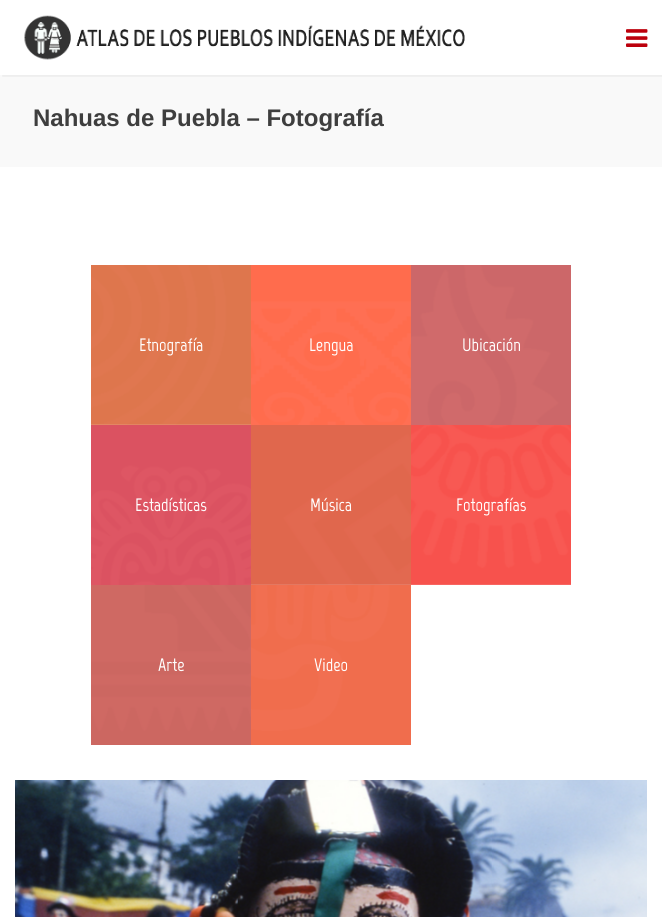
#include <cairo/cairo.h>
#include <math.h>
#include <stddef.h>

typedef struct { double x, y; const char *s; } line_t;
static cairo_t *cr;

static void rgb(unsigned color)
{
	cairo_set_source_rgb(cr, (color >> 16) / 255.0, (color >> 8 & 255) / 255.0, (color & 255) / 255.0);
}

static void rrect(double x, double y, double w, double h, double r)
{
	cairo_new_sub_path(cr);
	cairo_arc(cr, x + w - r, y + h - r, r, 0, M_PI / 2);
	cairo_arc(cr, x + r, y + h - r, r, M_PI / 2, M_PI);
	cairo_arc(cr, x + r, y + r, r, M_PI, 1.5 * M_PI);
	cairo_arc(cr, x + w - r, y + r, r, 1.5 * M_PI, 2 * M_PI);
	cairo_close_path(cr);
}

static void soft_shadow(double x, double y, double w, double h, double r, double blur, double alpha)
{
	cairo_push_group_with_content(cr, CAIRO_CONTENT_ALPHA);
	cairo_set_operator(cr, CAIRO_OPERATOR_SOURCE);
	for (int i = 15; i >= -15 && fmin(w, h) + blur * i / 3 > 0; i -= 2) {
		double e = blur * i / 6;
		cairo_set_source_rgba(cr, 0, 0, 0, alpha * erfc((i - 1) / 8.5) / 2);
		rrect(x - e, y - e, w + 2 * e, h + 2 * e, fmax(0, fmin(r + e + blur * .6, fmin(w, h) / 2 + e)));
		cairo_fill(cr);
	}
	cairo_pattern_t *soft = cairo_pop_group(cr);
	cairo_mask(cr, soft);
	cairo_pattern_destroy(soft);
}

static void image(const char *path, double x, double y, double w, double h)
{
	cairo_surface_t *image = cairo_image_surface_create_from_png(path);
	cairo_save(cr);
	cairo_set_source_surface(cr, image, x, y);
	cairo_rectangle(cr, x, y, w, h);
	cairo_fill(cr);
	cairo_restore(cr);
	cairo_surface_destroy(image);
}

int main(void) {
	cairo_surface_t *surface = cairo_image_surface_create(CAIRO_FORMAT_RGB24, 662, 917);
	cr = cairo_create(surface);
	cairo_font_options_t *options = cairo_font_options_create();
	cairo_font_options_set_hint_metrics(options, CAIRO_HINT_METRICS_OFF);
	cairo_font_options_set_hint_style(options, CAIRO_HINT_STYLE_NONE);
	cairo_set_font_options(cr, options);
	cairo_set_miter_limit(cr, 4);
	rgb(0xffffff);
	cairo_paint(cr);
	rgb(0xf9f9f9);
	cairo_rectangle(cr, 0, 75, 662, 92);
	cairo_fill(cr);
	cairo_save(cr);
	cairo_rectangle(cr, 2, 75, 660, 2);
	cairo_clip(cr);
	rgb(0x000000);
	soft_shadow(2, 2, 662, 75, 0, 1, 0.05);
	cairo_restore(cr);
	image("img/1.png", 24, 15, 441, 45);
	image("img/2.png", 626, 29, 22, 18);
	image("img/3.png", 91, 265, 160, 160);
	image("img/4.png", 251, 265, 160, 160);
	image("img/5.png", 411, 265, 160, 160);
	image("img/6.png", 91, 425, 160, 160);
	image("img/7.png", 251, 425, 160, 160);
	image("img/8.png", 411, 425, 160, 160);
	image("img/9.png", 91, 585, 160, 160);
	image("img/10.png", 251, 585, 160, 160);
	image("img/11.png", 15, 780, 632, 137);
	cairo_select_font_face(cr, "Arimo", CAIRO_FONT_SLANT_NORMAL, CAIRO_FONT_WEIGHT_BOLD);
	cairo_set_font_size(cr, 24);
	rgb(0x3e3e3e);
	cairo_move_to(cr, 33, 126);
	cairo_show_text(cr, "Nahuas de Puebla – Fotografía");
	cairo_select_font_face(cr, "Marvel", CAIRO_FONT_SLANT_NORMAL, CAIRO_FONT_WEIGHT_BOLD);
	cairo_set_font_size(cr, 18);
	rgb(0xffffff);
	{
		static const line_t items[] = {
			{139, 351, "Etnografía"},
			{309, 351, "Lengua"},
			{462, 351, "Ubicación"},
			{135, 511, "Estadísticas"},
			{310, 511, "Música"},
			{456, 511, "Fotografías"},
			{158, 671, "Arte"},
			{314, 671, "Video"},
		};
		for (size_t i = 0; i < sizeof items / sizeof *items; i++) {
			cairo_move_to(cr, items[i].x, items[i].y);
			cairo_show_text(cr, items[i].s);
		}
	}
	cairo_surface_write_to_png(surface, "page.png");
	cairo_font_options_destroy(options);
	cairo_destroy(cr);
	cairo_surface_destroy(surface);
	return 0;
}
